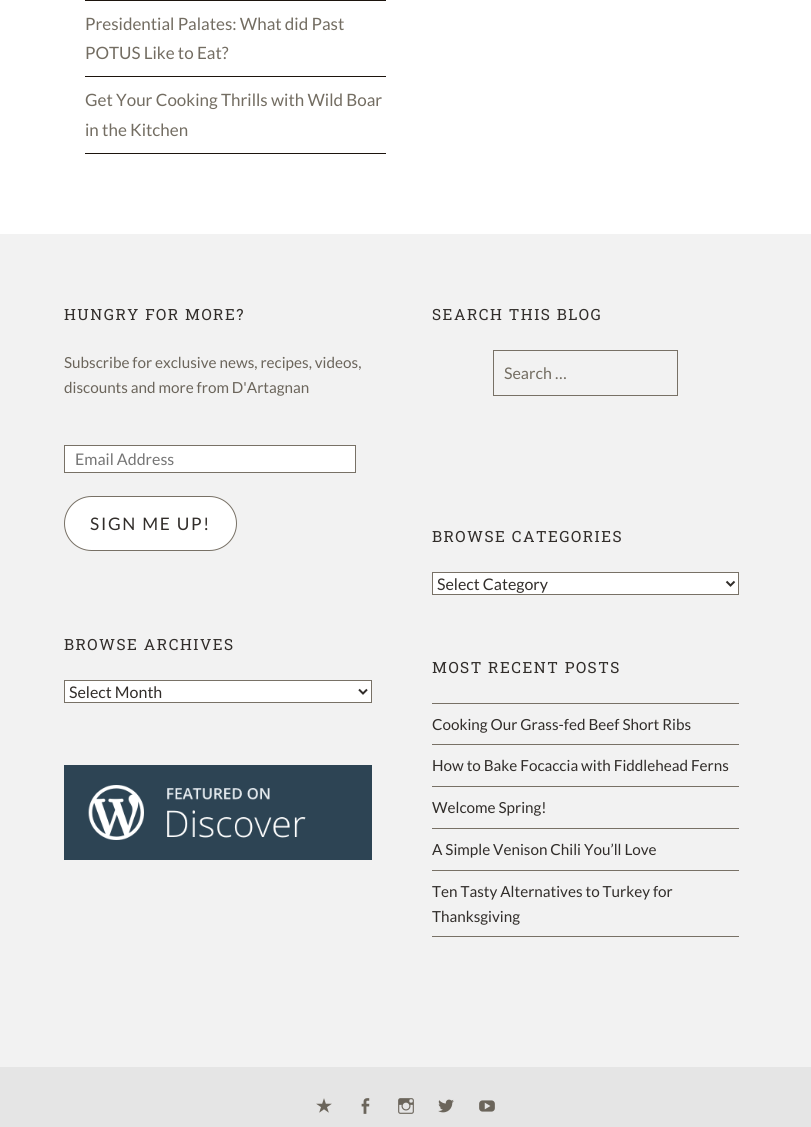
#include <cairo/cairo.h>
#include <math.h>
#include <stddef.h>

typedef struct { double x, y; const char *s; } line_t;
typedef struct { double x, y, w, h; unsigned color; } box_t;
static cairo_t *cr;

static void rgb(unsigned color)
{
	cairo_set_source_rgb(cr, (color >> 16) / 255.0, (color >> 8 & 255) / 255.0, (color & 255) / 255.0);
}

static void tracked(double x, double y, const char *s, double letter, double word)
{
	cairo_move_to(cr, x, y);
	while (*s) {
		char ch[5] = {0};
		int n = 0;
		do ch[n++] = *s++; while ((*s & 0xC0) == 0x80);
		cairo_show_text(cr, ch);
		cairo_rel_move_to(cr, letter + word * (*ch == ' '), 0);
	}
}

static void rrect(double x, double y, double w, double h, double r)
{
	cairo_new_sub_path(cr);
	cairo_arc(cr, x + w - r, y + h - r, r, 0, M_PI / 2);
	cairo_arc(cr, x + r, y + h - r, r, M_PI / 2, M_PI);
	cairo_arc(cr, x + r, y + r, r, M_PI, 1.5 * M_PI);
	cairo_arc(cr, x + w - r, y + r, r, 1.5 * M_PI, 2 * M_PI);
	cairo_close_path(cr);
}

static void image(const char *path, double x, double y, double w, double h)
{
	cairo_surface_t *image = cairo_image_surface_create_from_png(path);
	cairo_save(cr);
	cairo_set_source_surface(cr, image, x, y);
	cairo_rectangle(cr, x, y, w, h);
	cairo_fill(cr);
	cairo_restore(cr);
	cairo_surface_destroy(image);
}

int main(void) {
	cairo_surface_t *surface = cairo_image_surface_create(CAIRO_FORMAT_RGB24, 811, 1127);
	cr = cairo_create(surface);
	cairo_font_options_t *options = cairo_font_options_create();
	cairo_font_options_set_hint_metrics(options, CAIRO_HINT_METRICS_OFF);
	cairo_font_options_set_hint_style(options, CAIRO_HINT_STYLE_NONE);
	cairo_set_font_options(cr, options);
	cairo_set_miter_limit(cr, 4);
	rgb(0xffffff);
	cairo_paint(cr);
	{
		static const box_t items[] = {
			{85, 0, 301, 1, 0x1c140d},
			{85, 76, 301, 1, 0x1c140d},
			{85, 153, 301, 1, 0x1c140d},
			{0, 234, 811, 833, 0xf2f2f2},
		};
		for (size_t i = 0; i < sizeof items / sizeof *items; i++) {
			rgb(items[i].color);
			cairo_rectangle(cr, items[i].x, items[i].y, items[i].w, items[i].h);
			cairo_fill(cr);
		}
	}
	rgb(0xffffff);
	cairo_rectangle(cr, 64.5, 445.5, 291, 27);
	cairo_fill_preserve(cr);
	rgb(0x787166);
	cairo_set_line_width(cr, 1);
	cairo_stroke(cr);
	rgb(0xffffff);
	rrect(64.5, 496.5, 172, 54, 27);
	cairo_fill_preserve(cr);
	rgb(0x787166);
	cairo_stroke(cr);
	cairo_rectangle(cr, 493.5, 350.5, 184, 45);
	cairo_stroke(cr);
	rgb(0xffffff);
	cairo_rectangle(cr, 432.5, 572.5, 306, 22);
	cairo_fill_preserve(cr);
	rgb(0x787166);
	cairo_stroke(cr);
	cairo_new_path(cr);
	cairo_move_to(cr, 726.5, 581.5);
	cairo_line_to(cr, 730.5, 585.5);
	cairo_line_to(cr, 734.5, 581.5);
	rgb(0x312d2a);
	cairo_set_line_width(cr, 2);
	cairo_stroke(cr);
	rgb(0xffffff);
	cairo_rectangle(cr, 64.5, 680.5, 307, 22);
	cairo_fill_preserve(cr);
	rgb(0x787166);
	cairo_set_line_width(cr, 1);
	cairo_stroke(cr);
	cairo_new_path(cr);
	cairo_move_to(cr, 359, 689.5);
	cairo_line_to(cr, 363, 693.5);
	cairo_line_to(cr, 367, 689.5);
	rgb(0x312d2a);
	cairo_set_line_width(cr, 2);
	cairo_stroke(cr);
	{
		static const box_t items[] = {
			{432, 703, 307, 1, 0x787166},
			{432, 744, 307, 1, 0x787166},
			{432, 786, 307, 1, 0x787166},
			{432, 828, 307, 1, 0x787166},
			{432, 870, 307, 1, 0x787166},
			{432, 936, 307, 1, 0x787166},
		};
		for (size_t i = 0; i < sizeof items / sizeof *items; i++) {
			rgb(items[i].color);
			cairo_rectangle(cr, items[i].x, items[i].y, items[i].w, items[i].h);
			cairo_fill(cr);
		}
	}
	image("img/1.png", 64, 765, 308, 95);
	rgb(0xe5e5e5);
	cairo_rectangle(cr, 0, 1067, 811, 60);
	cairo_fill(cr);
	image("img/2.png", 316, 1098, 16, 15);
	image("img/3.png", 361, 1098, 9, 16);
	image("img/4.png", 398, 1098, 16, 16);
	image("img/5.png", 438, 1099, 16, 14);
	image("img/6.png", 479, 1100, 16, 12);
	cairo_select_font_face(cr, "Lato", CAIRO_FONT_SLANT_NORMAL, CAIRO_FONT_WEIGHT_NORMAL);
	cairo_set_font_size(cr, 17);
	rgb(0x736d62);
	{
		static const line_t items[] = {
			{85, 30, "Presidential Palates: What did Past"},
			{85, 59, "POTUS Like to Eat?"},
			{85, 106, "Get Your Cooking Thrills with Wild Boar"},
			{85, 136, "in the Kitchen"},
		};
		for (size_t i = 0; i < sizeof items / sizeof *items; i++) {
			cairo_move_to(cr, items[i].x, items[i].y);
			cairo_show_text(cr, items[i].s);
		}
	}
	cairo_select_font_face(cr, "Roboto Slab", CAIRO_FONT_SLANT_NORMAL, CAIRO_FONT_WEIGHT_NORMAL);
	cairo_set_font_size(cr, 15.4);
	rgb(0x312d2a);
	tracked(64, 320, "HUNGRY FOR MORE?", 1.5, 0);
	cairo_select_font_face(cr, "Lato", CAIRO_FONT_SLANT_NORMAL, CAIRO_FONT_WEIGHT_NORMAL);
	cairo_set_font_size(cr, 15.25);
	rgb(0x6b655b);
	cairo_move_to(cr, 64, 368);
	cairo_show_text(cr, "Subscribe for exclusive news, recipes, videos,");
	cairo_move_to(cr, 64, 393);
	cairo_show_text(cr, "discounts and more from D'Artagnan");
	cairo_set_font_size(cr, 16);
	rgb(0x757575);
	cairo_move_to(cr, 75, 465);
	cairo_show_text(cr, "Email Address");
	cairo_set_font_size(cr, 17.25);
	rgb(0x312d2a);
	tracked(90, 530, "SIGN ME UP!", 1.75, 0);
	cairo_select_font_face(cr, "Roboto Slab", CAIRO_FONT_SLANT_NORMAL, CAIRO_FONT_WEIGHT_NORMAL);
	cairo_set_font_size(cr, 15.4);
	tracked(432, 320, "SEARCH THIS BLOG", 1.5, 0);
	cairo_select_font_face(cr, "Lato", CAIRO_FONT_SLANT_NORMAL, CAIRO_FONT_WEIGHT_NORMAL);
	cairo_set_font_size(cr, 16);
	rgb(0x736d62);
	cairo_move_to(cr, 504, 379);
	cairo_show_text(cr, "Search …");
	cairo_select_font_face(cr, "Roboto Slab", CAIRO_FONT_SLANT_NORMAL, CAIRO_FONT_WEIGHT_NORMAL);
	cairo_set_font_size(cr, 15.4);
	rgb(0x312d2a);
	tracked(432, 542, "BROWSE CATEGORIES", 1.5, 0);
	cairo_select_font_face(cr, "Lato", CAIRO_FONT_SLANT_NORMAL, CAIRO_FONT_WEIGHT_NORMAL);
	cairo_set_font_size(cr, 16);
	cairo_move_to(cr, 437, 590);
	cairo_show_text(cr, "Select Category");
	cairo_select_font_face(cr, "Roboto Slab", CAIRO_FONT_SLANT_NORMAL, CAIRO_FONT_WEIGHT_NORMAL);
	cairo_set_font_size(cr, 15.4);
	tracked(64, 650, "BROWSE ARCHIVES", 1.5, 0);
	cairo_select_font_face(cr, "Lato", CAIRO_FONT_SLANT_NORMAL, CAIRO_FONT_WEIGHT_NORMAL);
	cairo_set_font_size(cr, 16);
	cairo_move_to(cr, 69, 698);
	cairo_show_text(cr, "Select Month");
	cairo_select_font_face(cr, "Roboto Slab", CAIRO_FONT_SLANT_NORMAL, CAIRO_FONT_WEIGHT_NORMAL);
	cairo_set_font_size(cr, 15.4);
	tracked(432, 673, "MOST RECENT POSTS", 1.5, 0);
	cairo_select_font_face(cr, "Lato", CAIRO_FONT_SLANT_NORMAL, CAIRO_FONT_WEIGHT_NORMAL);
	cairo_set_font_size(cr, 15.25);
	{
		static const line_t items[] = {
			{432, 730, "Cooking Our Grass-fed Beef Short Ribs"},
			{432, 771, "How to Bake Focaccia with Fiddlehead Ferns"},
			{432, 813, "Welcome Spring!"},
			{432, 855, "A Simple Venison Chili You’ll Love"},
			{432, 897, "Ten Tasty Alternatives to Turkey for"},
			{432, 922, "Thanksgiving"},
		};
		for (size_t i = 0; i < sizeof items / sizeof *items; i++) {
			cairo_move_to(cr, items[i].x, items[i].y);
			cairo_show_text(cr, items[i].s);
		}
	}
	cairo_surface_write_to_png(surface, "page.png");
	cairo_font_options_destroy(options);
	cairo_destroy(cr);
	cairo_surface_destroy(surface);
	return 0;
}
